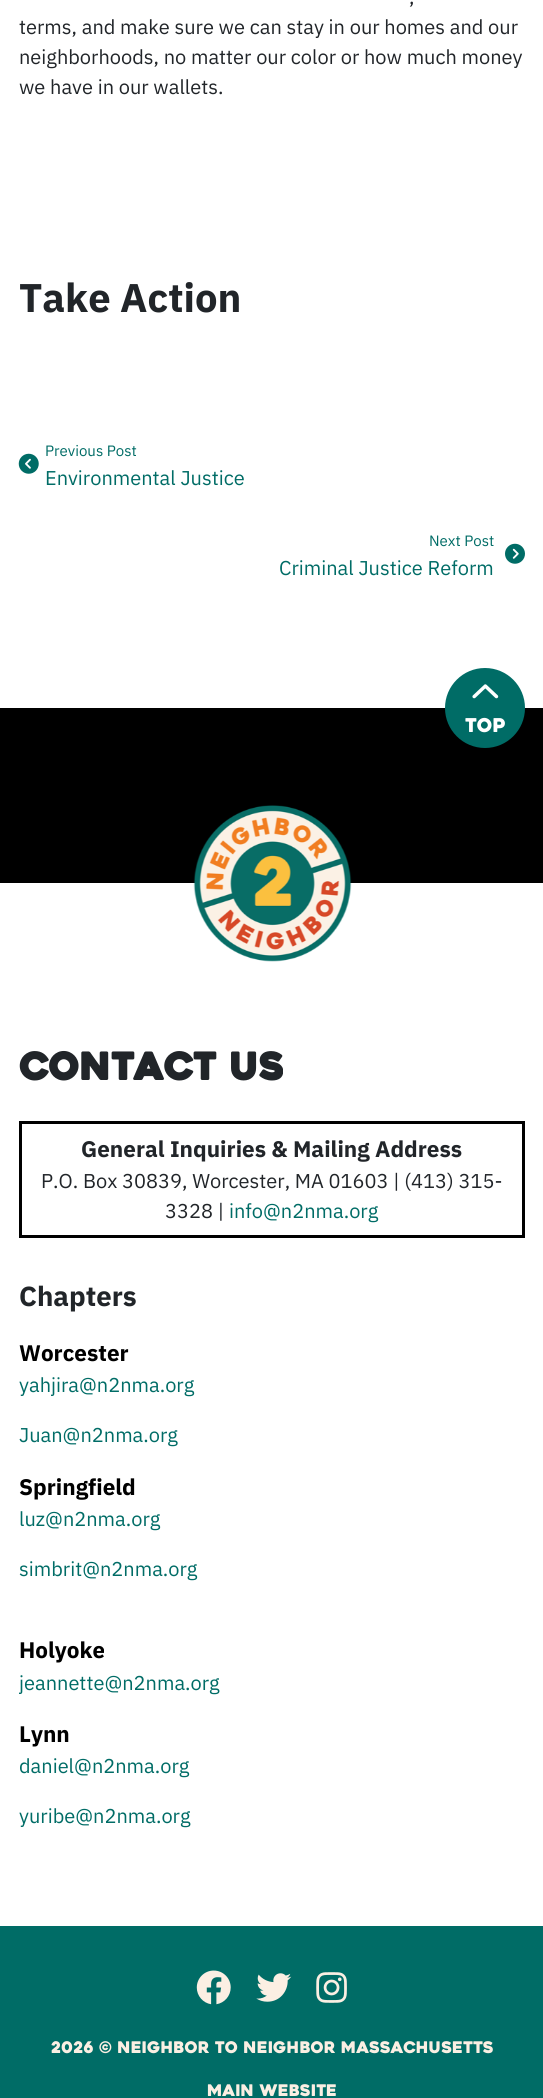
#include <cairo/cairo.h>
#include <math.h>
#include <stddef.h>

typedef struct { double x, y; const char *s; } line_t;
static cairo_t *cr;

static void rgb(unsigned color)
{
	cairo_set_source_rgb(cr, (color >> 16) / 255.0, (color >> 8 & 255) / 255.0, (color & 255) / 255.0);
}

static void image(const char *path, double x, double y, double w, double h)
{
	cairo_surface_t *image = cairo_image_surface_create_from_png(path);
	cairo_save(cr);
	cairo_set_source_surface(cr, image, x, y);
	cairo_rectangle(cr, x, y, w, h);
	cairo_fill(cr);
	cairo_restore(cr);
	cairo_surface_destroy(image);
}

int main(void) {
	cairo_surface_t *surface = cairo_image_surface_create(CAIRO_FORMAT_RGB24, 543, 2098);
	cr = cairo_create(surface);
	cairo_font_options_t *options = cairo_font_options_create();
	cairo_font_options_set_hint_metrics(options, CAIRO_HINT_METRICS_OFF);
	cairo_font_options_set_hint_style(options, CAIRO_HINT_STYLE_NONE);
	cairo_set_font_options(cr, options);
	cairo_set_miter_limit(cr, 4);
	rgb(0xffffff);
	cairo_paint(cr);
	image("img/1.png", 18, 453, 21, 21);
	image("img/2.png", 505, 543, 20, 21);
	rgb(0x000000);
	cairo_rectangle(cr, 0, 708, 543, 175);
	cairo_fill(cr);
	rgb(0x006c66);
	cairo_arc(cr, 485, 708, 40, 0, 2 * M_PI);
	cairo_fill(cr);
	image("img/3.png", 472, 684, 27, 15);
	image("img/4.png", 193, 805, 159, 157);
	cairo_rectangle(cr, 20.5, 1122.5, 503, 114);
	rgb(0x000000);
	cairo_set_line_width(cr, 3);
	cairo_stroke(cr);
	rgb(0x006c66);
	cairo_rectangle(cr, 0, 1926, 543, 172);
	cairo_fill(cr);
	image("img/5.png", 196, 1970, 35, 35);
	image("img/6.png", 256, 1973, 36, 29);
	image("img/7.png", 316, 1972, 31, 31);
	cairo_select_font_face(cr, "IBM Plex Sans", CAIRO_FONT_SLANT_NORMAL, CAIRO_FONT_WEIGHT_NORMAL);
	cairo_set_font_size(cr, 20);
	rgb(0x212529);
	{
		static const line_t items[] = {
			{409, 4, ","},
			{19, 34, "terms, and make sure we can stay in our homes and our"},
			{19, 64, "neighborhoods, no matter our color or how much money"},
			{19, 94, "we have in our wallets."},
		};
		for (size_t i = 0; i < sizeof items / sizeof *items; i++) {
			cairo_move_to(cr, items[i].x, items[i].y);
			cairo_show_text(cr, items[i].s);
		}
	}
	cairo_select_font_face(cr, "IBM Plex Sans", CAIRO_FONT_SLANT_NORMAL, CAIRO_FONT_WEIGHT_BOLD);
	cairo_set_font_size(cr, 40);
	cairo_move_to(cr, 19, 312);
	cairo_show_text(cr, "Take Action");
	cairo_select_font_face(cr, "IBM Plex Sans", CAIRO_FONT_SLANT_NORMAL, CAIRO_FONT_WEIGHT_NORMAL);
	cairo_set_font_size(cr, 15);
	rgb(0x006c66);
	cairo_move_to(cr, 45, 456);
	cairo_show_text(cr, "Previous Post");
	cairo_set_font_size(cr, 20);
	cairo_move_to(cr, 45, 485);
	cairo_show_text(cr, "Environmental Justice");
	cairo_set_font_size(cr, 15);
	cairo_move_to(cr, 429, 546);
	cairo_show_text(cr, "Next Post");
	cairo_set_font_size(cr, 20);
	cairo_move_to(cr, 279, 575);
	cairo_show_text(cr, "Criminal Justice Reform");
	cairo_select_font_face(cr, "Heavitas", CAIRO_FONT_SLANT_NORMAL, CAIRO_FONT_WEIGHT_NORMAL);
	cairo_set_font_size(cr, 19);
	rgb(0xffffff);
	cairo_move_to(cr, 465, 732);
	cairo_show_text(cr, "Top");
	cairo_select_font_face(cr, "Heavitas", CAIRO_FONT_SLANT_NORMAL, CAIRO_FONT_WEIGHT_BOLD);
	cairo_set_font_size(cr, 37.5);
	rgb(0x212529);
	cairo_move_to(cr, 19, 1080);
	cairo_show_text(cr, "Contact Us");
	cairo_select_font_face(cr, "IBM Plex Sans", CAIRO_FONT_SLANT_NORMAL, CAIRO_FONT_WEIGHT_BOLD);
	cairo_set_font_size(cr, 22.5);
	cairo_move_to(cr, 81, 1157);
	cairo_show_text(cr, "General Inquiries & Mailing Address");
	cairo_select_font_face(cr, "IBM Plex Sans", CAIRO_FONT_SLANT_NORMAL, CAIRO_FONT_WEIGHT_NORMAL);
	cairo_set_font_size(cr, 20);
	cairo_move_to(cr, 41, 1188);
	cairo_show_text(cr, "P.O. Box 30839, Worcester, MA 01603 | (413) 315-");
	cairo_move_to(cr, 165, 1218);
	cairo_show_text(cr, "3328 |");
	rgb(0x006c66);
	cairo_move_to(cr, 229, 1218);
	cairo_show_text(cr, "info@n2nma.org");
	cairo_select_font_face(cr, "IBM Plex Sans", CAIRO_FONT_SLANT_NORMAL, CAIRO_FONT_WEIGHT_BOLD);
	cairo_set_font_size(cr, 27.5);
	rgb(0x212529);
	cairo_move_to(cr, 19, 1306);
	cairo_show_text(cr, "Chapters");
	cairo_set_font_size(cr, 22.5);
	rgb(0x000000);
	cairo_move_to(cr, 19, 1361);
	cairo_show_text(cr, "Worcester");
	cairo_select_font_face(cr, "IBM Plex Sans", CAIRO_FONT_SLANT_NORMAL, CAIRO_FONT_WEIGHT_NORMAL);
	cairo_set_font_size(cr, 20);
	rgb(0x006c66);
	cairo_move_to(cr, 19, 1392);
	cairo_show_text(cr, "yahjira@n2nma.org");
	cairo_move_to(cr, 19, 1442);
	cairo_show_text(cr, "Juan@n2nma.org");
	cairo_select_font_face(cr, "IBM Plex Sans", CAIRO_FONT_SLANT_NORMAL, CAIRO_FONT_WEIGHT_BOLD);
	cairo_set_font_size(cr, 22.5);
	rgb(0x000000);
	cairo_move_to(cr, 19, 1495);
	cairo_show_text(cr, "Springfield");
	cairo_select_font_face(cr, "IBM Plex Sans", CAIRO_FONT_SLANT_NORMAL, CAIRO_FONT_WEIGHT_NORMAL);
	cairo_set_font_size(cr, 20);
	rgb(0x006c66);
	cairo_move_to(cr, 19, 1526);
	cairo_show_text(cr, "luz@n2nma.org");
	cairo_move_to(cr, 19, 1576);
	cairo_show_text(cr, "simbrit@n2nma.org");
	cairo_select_font_face(cr, "IBM Plex Sans", CAIRO_FONT_SLANT_NORMAL, CAIRO_FONT_WEIGHT_BOLD);
	cairo_set_font_size(cr, 22.5);
	rgb(0x000000);
	cairo_move_to(cr, 19, 1658);
	cairo_show_text(cr, "Holyoke");
	cairo_select_font_face(cr, "IBM Plex Sans", CAIRO_FONT_SLANT_NORMAL, CAIRO_FONT_WEIGHT_NORMAL);
	cairo_set_font_size(cr, 20);
	rgb(0x006c66);
	cairo_move_to(cr, 19, 1690);
	cairo_show_text(cr, "jeannette@n2nma.org");
	cairo_select_font_face(cr, "IBM Plex Sans", CAIRO_FONT_SLANT_NORMAL, CAIRO_FONT_WEIGHT_BOLD);
	cairo_set_font_size(cr, 22.5);
	rgb(0x000000);
	cairo_move_to(cr, 19, 1742);
	cairo_show_text(cr, "Lynn");
	cairo_select_font_face(cr, "IBM Plex Sans", CAIRO_FONT_SLANT_NORMAL, CAIRO_FONT_WEIGHT_NORMAL);
	cairo_set_font_size(cr, 20);
	rgb(0x006c66);
	cairo_move_to(cr, 19, 1773);
	cairo_show_text(cr, "daniel@n2nma.org");
	cairo_move_to(cr, 19, 1823);
	cairo_show_text(cr, "yuribe@n2nma.org");
	cairo_select_font_face(cr, "Heavitas", CAIRO_FONT_SLANT_NORMAL, CAIRO_FONT_WEIGHT_NORMAL);
	cairo_set_font_size(cr, 16);
	rgb(0xfbefe3);
	cairo_move_to(cr, 51, 2053);
	cairo_show_text(cr, "2026 © Neighbor to Neighbor Massachusetts");
	cairo_move_to(cr, 207, 2096);
	cairo_show_text(cr, "Main Website");
	cairo_surface_write_to_png(surface, "page.png");
	cairo_font_options_destroy(options);
	cairo_destroy(cr);
	cairo_surface_destroy(surface);
	return 0;
}
